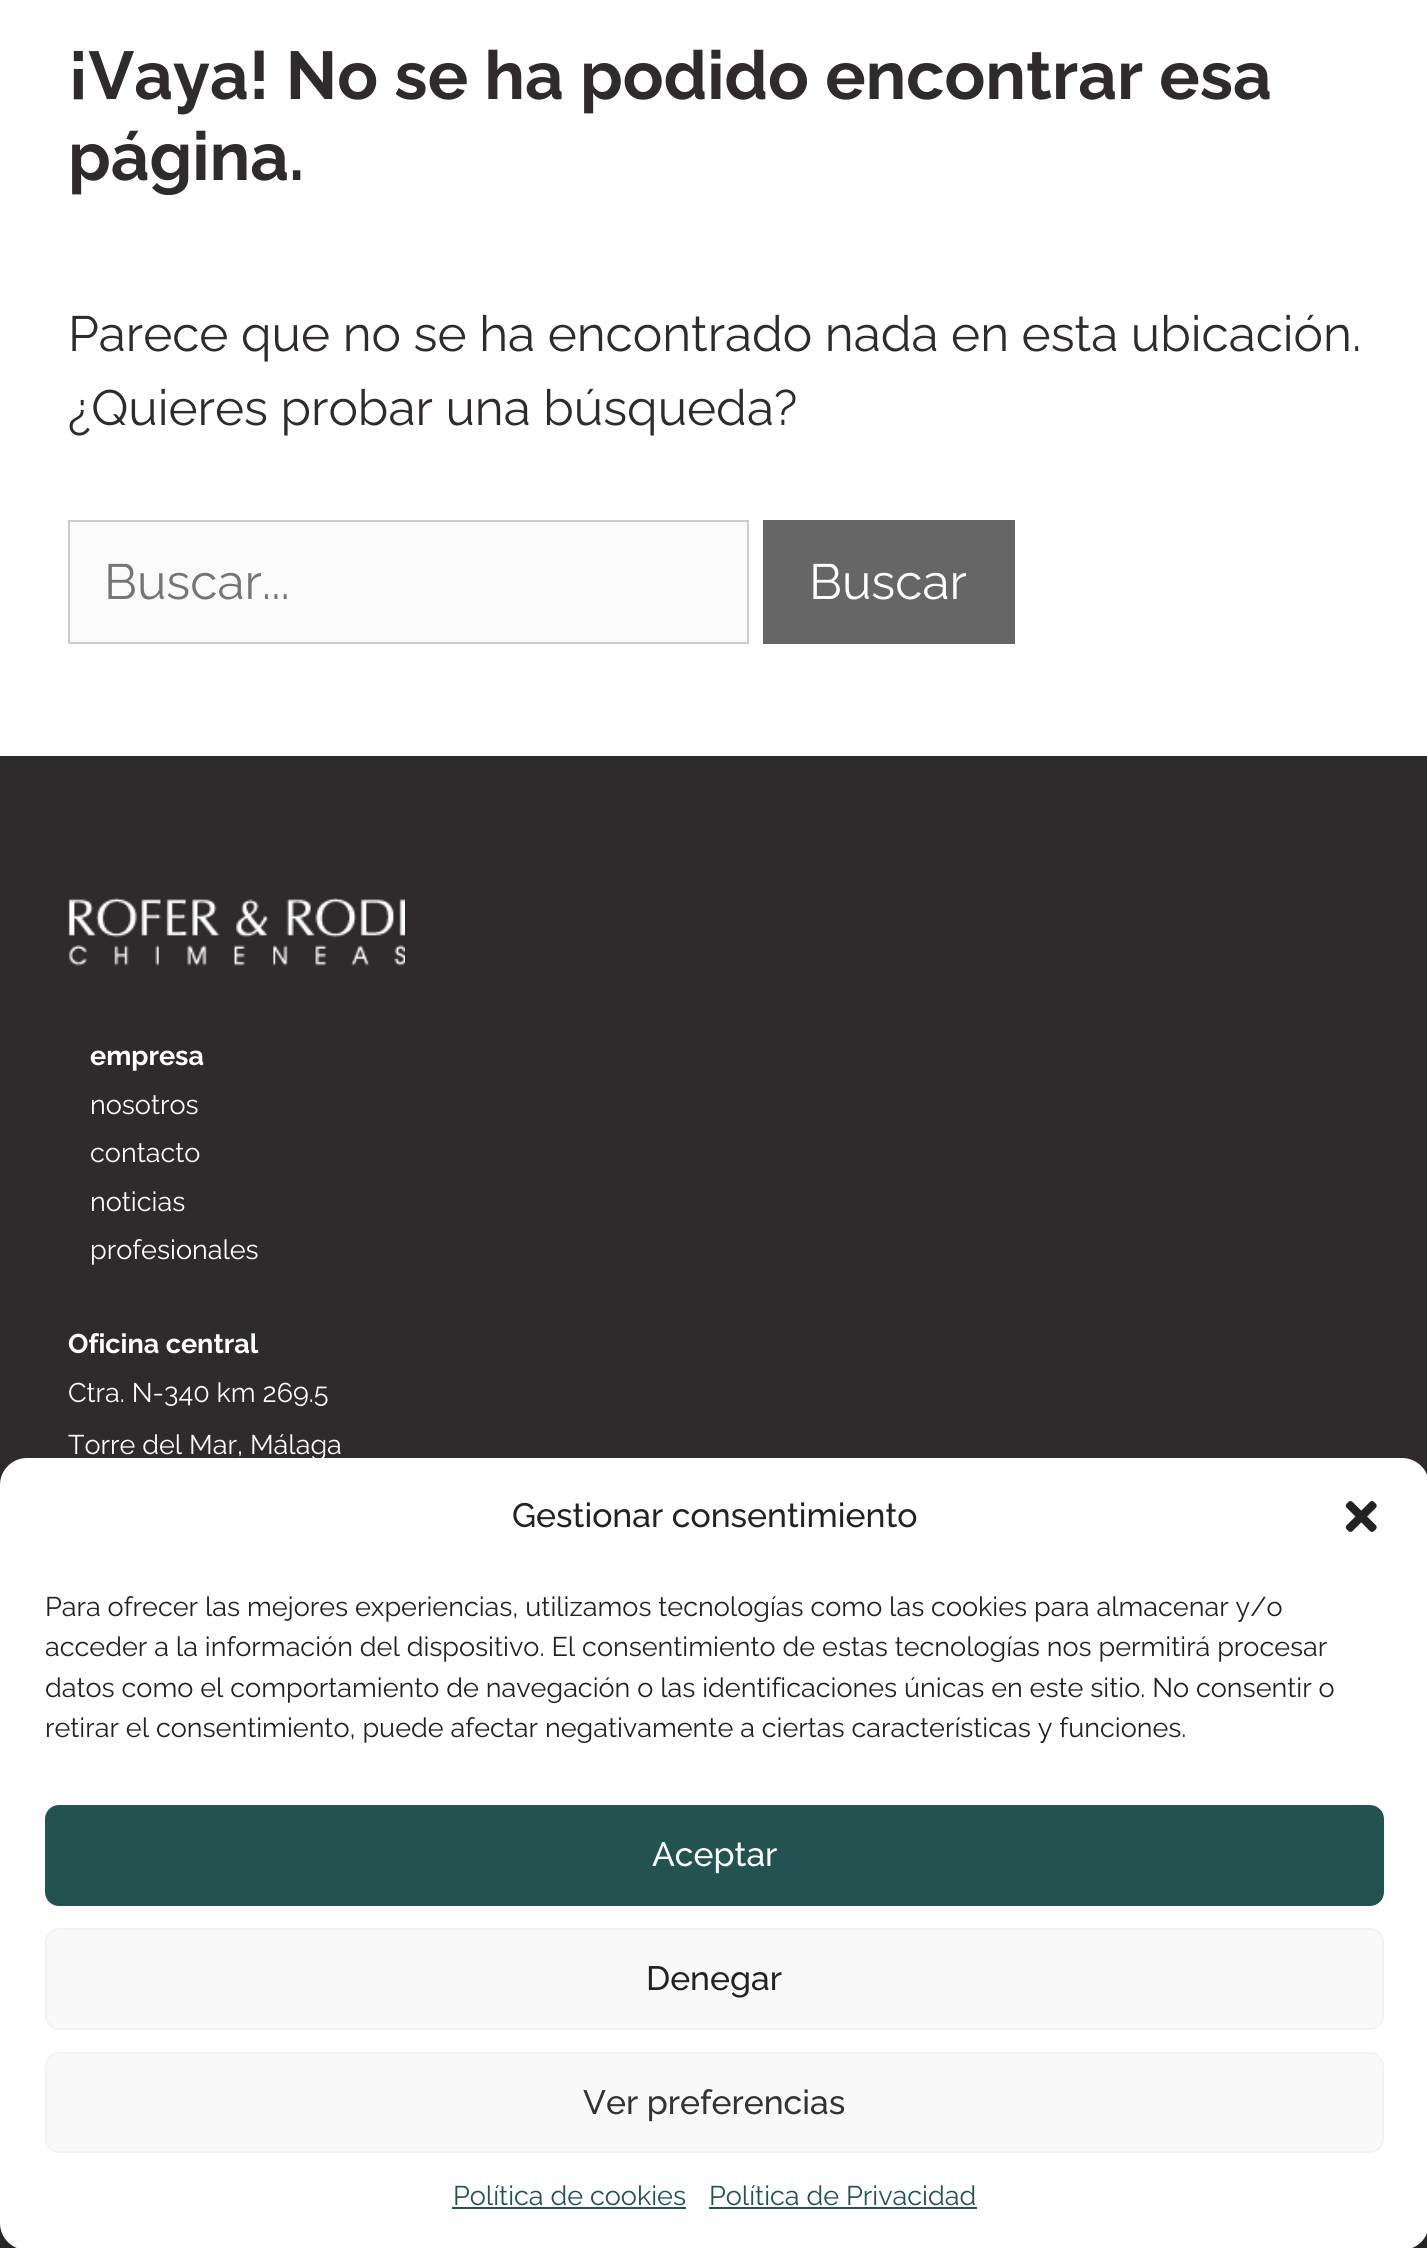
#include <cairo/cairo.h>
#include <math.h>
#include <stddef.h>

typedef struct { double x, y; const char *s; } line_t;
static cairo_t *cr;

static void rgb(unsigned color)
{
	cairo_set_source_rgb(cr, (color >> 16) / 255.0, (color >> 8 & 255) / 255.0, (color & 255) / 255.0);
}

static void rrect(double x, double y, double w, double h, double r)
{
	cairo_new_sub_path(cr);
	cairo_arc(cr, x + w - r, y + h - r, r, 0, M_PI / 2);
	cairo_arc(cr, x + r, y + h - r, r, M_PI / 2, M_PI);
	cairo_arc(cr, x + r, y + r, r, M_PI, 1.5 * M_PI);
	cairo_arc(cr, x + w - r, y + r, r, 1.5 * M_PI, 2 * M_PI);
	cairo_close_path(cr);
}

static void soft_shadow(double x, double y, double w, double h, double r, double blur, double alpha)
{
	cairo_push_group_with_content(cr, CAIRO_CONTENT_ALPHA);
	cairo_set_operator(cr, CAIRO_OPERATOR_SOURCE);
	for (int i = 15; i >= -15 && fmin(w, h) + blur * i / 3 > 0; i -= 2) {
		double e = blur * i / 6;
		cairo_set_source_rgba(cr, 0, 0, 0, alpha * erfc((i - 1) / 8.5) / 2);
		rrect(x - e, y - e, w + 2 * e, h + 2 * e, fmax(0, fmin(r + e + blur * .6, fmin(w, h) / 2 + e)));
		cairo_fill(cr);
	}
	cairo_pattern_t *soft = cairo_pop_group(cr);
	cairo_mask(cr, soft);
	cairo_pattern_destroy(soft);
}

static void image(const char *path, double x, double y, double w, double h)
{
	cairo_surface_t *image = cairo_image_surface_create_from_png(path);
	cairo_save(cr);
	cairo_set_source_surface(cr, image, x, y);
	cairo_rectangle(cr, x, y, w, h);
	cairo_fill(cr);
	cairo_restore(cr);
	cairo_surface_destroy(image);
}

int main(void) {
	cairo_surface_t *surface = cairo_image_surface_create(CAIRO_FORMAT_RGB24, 1427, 2248);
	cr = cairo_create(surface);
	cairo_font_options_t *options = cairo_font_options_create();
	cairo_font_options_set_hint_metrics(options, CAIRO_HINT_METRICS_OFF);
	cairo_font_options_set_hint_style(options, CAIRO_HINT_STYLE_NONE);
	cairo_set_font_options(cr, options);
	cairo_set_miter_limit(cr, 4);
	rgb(0xffffff);
	cairo_paint(cr);
	rgb(0xfafafa);
	cairo_rectangle(cr, 69, 521, 679, 122);
	cairo_fill_preserve(cr);
	rgb(0xcccccc);
	cairo_stroke(cr);
	rgb(0x666666);
	cairo_rectangle(cr, 763, 520, 252, 124);
	cairo_fill(cr);
	rgb(0x2f2b2c);
	cairo_rectangle(cr, 0, 756, 1427, 1492);
	cairo_fill(cr);
	image("img/1.png", 68, 898, 337, 68);
	rgb(0x000000);
	soft_shadow(0, 1472, 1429, 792, 27, 7, 0.23);
	rgb(0xffffff);
	rrect(0, 1458, 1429, 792, 27);
	cairo_fill(cr);
	image("img/2.png", 1345, 1501, 32, 31);
	rgb(0x225350);
	rrect(46, 1806, 1337, 99, 13);
	cairo_fill_preserve(cr);
	cairo_stroke(cr);
	rgb(0xf9f9f9);
	rrect(46, 1929, 1337, 100, 13);
	cairo_fill_preserve(cr);
	rgb(0xf2f2f2);
	cairo_stroke(cr);
	rgb(0xf9f9f9);
	rrect(46, 2053, 1337, 99, 13);
	cairo_fill_preserve(cr);
	rgb(0xf2f2f2);
	cairo_stroke(cr);
	rgb(0x225350);
	cairo_rectangle(cr, 452, 2207, 234, 2);
	cairo_fill(cr);
	cairo_rectangle(cr, 709, 2207, 268, 2);
	cairo_fill(cr);
	cairo_select_font_face(cr, "Raleway", CAIRO_FONT_SLANT_NORMAL, CAIRO_FONT_WEIGHT_BOLD);
	cairo_set_font_size(cr, 67.5);
	rgb(0x2f2b2c);
	cairo_move_to(cr, 68, 99);
	cairo_show_text(cr, "¡Vaya! No se ha podido encontrar esa");
	cairo_move_to(cr, 68, 180);
	cairo_show_text(cr, "página.");
	cairo_select_font_face(cr, "Raleway", CAIRO_FONT_SLANT_NORMAL, CAIRO_FONT_WEIGHT_NORMAL);
	cairo_set_font_size(cr, 49.5);
	cairo_move_to(cr, 68, 351);
	cairo_show_text(cr, "Parece que no se ha encontrado nada en esta ubicación.");
	cairo_move_to(cr, 68, 425);
	cairo_show_text(cr, "¿Quieres probar una búsqueda?");
	rgb(0x757575);
	cairo_move_to(cr, 104, 599);
	cairo_show_text(cr, "Buscar...");
	rgb(0xffffff);
	cairo_move_to(cr, 809, 599);
	cairo_show_text(cr, "Buscar");
	cairo_select_font_face(cr, "Raleway", CAIRO_FONT_SLANT_NORMAL, CAIRO_FONT_WEIGHT_BOLD);
	cairo_set_font_size(cr, 27);
	cairo_move_to(cr, 90, 1065);
	cairo_show_text(cr, "empresa");
	cairo_select_font_face(cr, "Raleway", CAIRO_FONT_SLANT_NORMAL, CAIRO_FONT_WEIGHT_NORMAL);
	{
		static const line_t items[] = {
			{90, 1114, "nosotros"},
			{90, 1162, "contacto"},
			{90, 1211, "noticias"},
			{90, 1259, "profesionales"},
		};
		for (size_t i = 0; i < sizeof items / sizeof *items; i++) {
			cairo_move_to(cr, items[i].x, items[i].y);
			cairo_show_text(cr, items[i].s);
		}
	}
	cairo_select_font_face(cr, "Raleway", CAIRO_FONT_SLANT_NORMAL, CAIRO_FONT_WEIGHT_BOLD);
	cairo_move_to(cr, 68, 1353);
	cairo_show_text(cr, "Oficina central");
	cairo_select_font_face(cr, "Raleway", CAIRO_FONT_SLANT_NORMAL, CAIRO_FONT_WEIGHT_NORMAL);
	cairo_move_to(cr, 68, 1402);
	cairo_show_text(cr, "Ctra. N-340 km 269.5");
	cairo_move_to(cr, 68, 1454);
	cairo_show_text(cr, "Torre del Mar, Málaga");
	cairo_select_font_face(cr, "Raleway Medium", CAIRO_FONT_SLANT_NORMAL, CAIRO_FONT_WEIGHT_NORMAL);
	cairo_set_font_size(cr, 33.75);
	rgb(0x222222);
	cairo_move_to(cr, 512, 1527);
	cairo_show_text(cr, "Gestionar consentimiento");
	cairo_select_font_face(cr, "Raleway", CAIRO_FONT_SLANT_NORMAL, CAIRO_FONT_WEIGHT_NORMAL);
	cairo_set_font_size(cr, 27);
	{
		static const line_t items[] = {
			{45, 1616, "Para ofrecer las mejores experiencias, utilizamos tecnologías como las cookies para almacenar y/o"},
			{45, 1656, "acceder a la información del dispositivo. El consentimiento de estas tecnologías nos permitirá procesar"},
			{45, 1697, "datos como el comportamiento de navegación o las identificaciones únicas en este sitio. No consentir o"},
			{45, 1737, "retirar el consentimiento, puede afectar negativamente a ciertas características y funciones."},
		};
		for (size_t i = 0; i < sizeof items / sizeof *items; i++) {
			cairo_move_to(cr, items[i].x, items[i].y);
			cairo_show_text(cr, items[i].s);
		}
	}
	cairo_select_font_face(cr, "Raleway Medium", CAIRO_FONT_SLANT_NORMAL, CAIRO_FONT_WEIGHT_NORMAL);
	cairo_set_font_size(cr, 33.75);
	rgb(0xffffff);
	cairo_move_to(cr, 652, 1866);
	cairo_show_text(cr, "Aceptar");
	rgb(0x222222);
	cairo_move_to(cr, 646, 1990);
	cairo_show_text(cr, "Denegar");
	rgb(0x333333);
	cairo_move_to(cr, 583, 2114);
	cairo_show_text(cr, "Ver preferencias");
	cairo_select_font_face(cr, "Raleway", CAIRO_FONT_SLANT_NORMAL, CAIRO_FONT_WEIGHT_NORMAL);
	cairo_set_font_size(cr, 27);
	rgb(0x225350);
	cairo_move_to(cr, 453, 2205);
	cairo_show_text(cr, "Política de cookies");
	cairo_move_to(cr, 709, 2205);
	cairo_show_text(cr, "Política de Privacidad");
	cairo_surface_write_to_png(surface, "page.png");
	cairo_font_options_destroy(options);
	cairo_destroy(cr);
	cairo_surface_destroy(surface);
	return 0;
}
